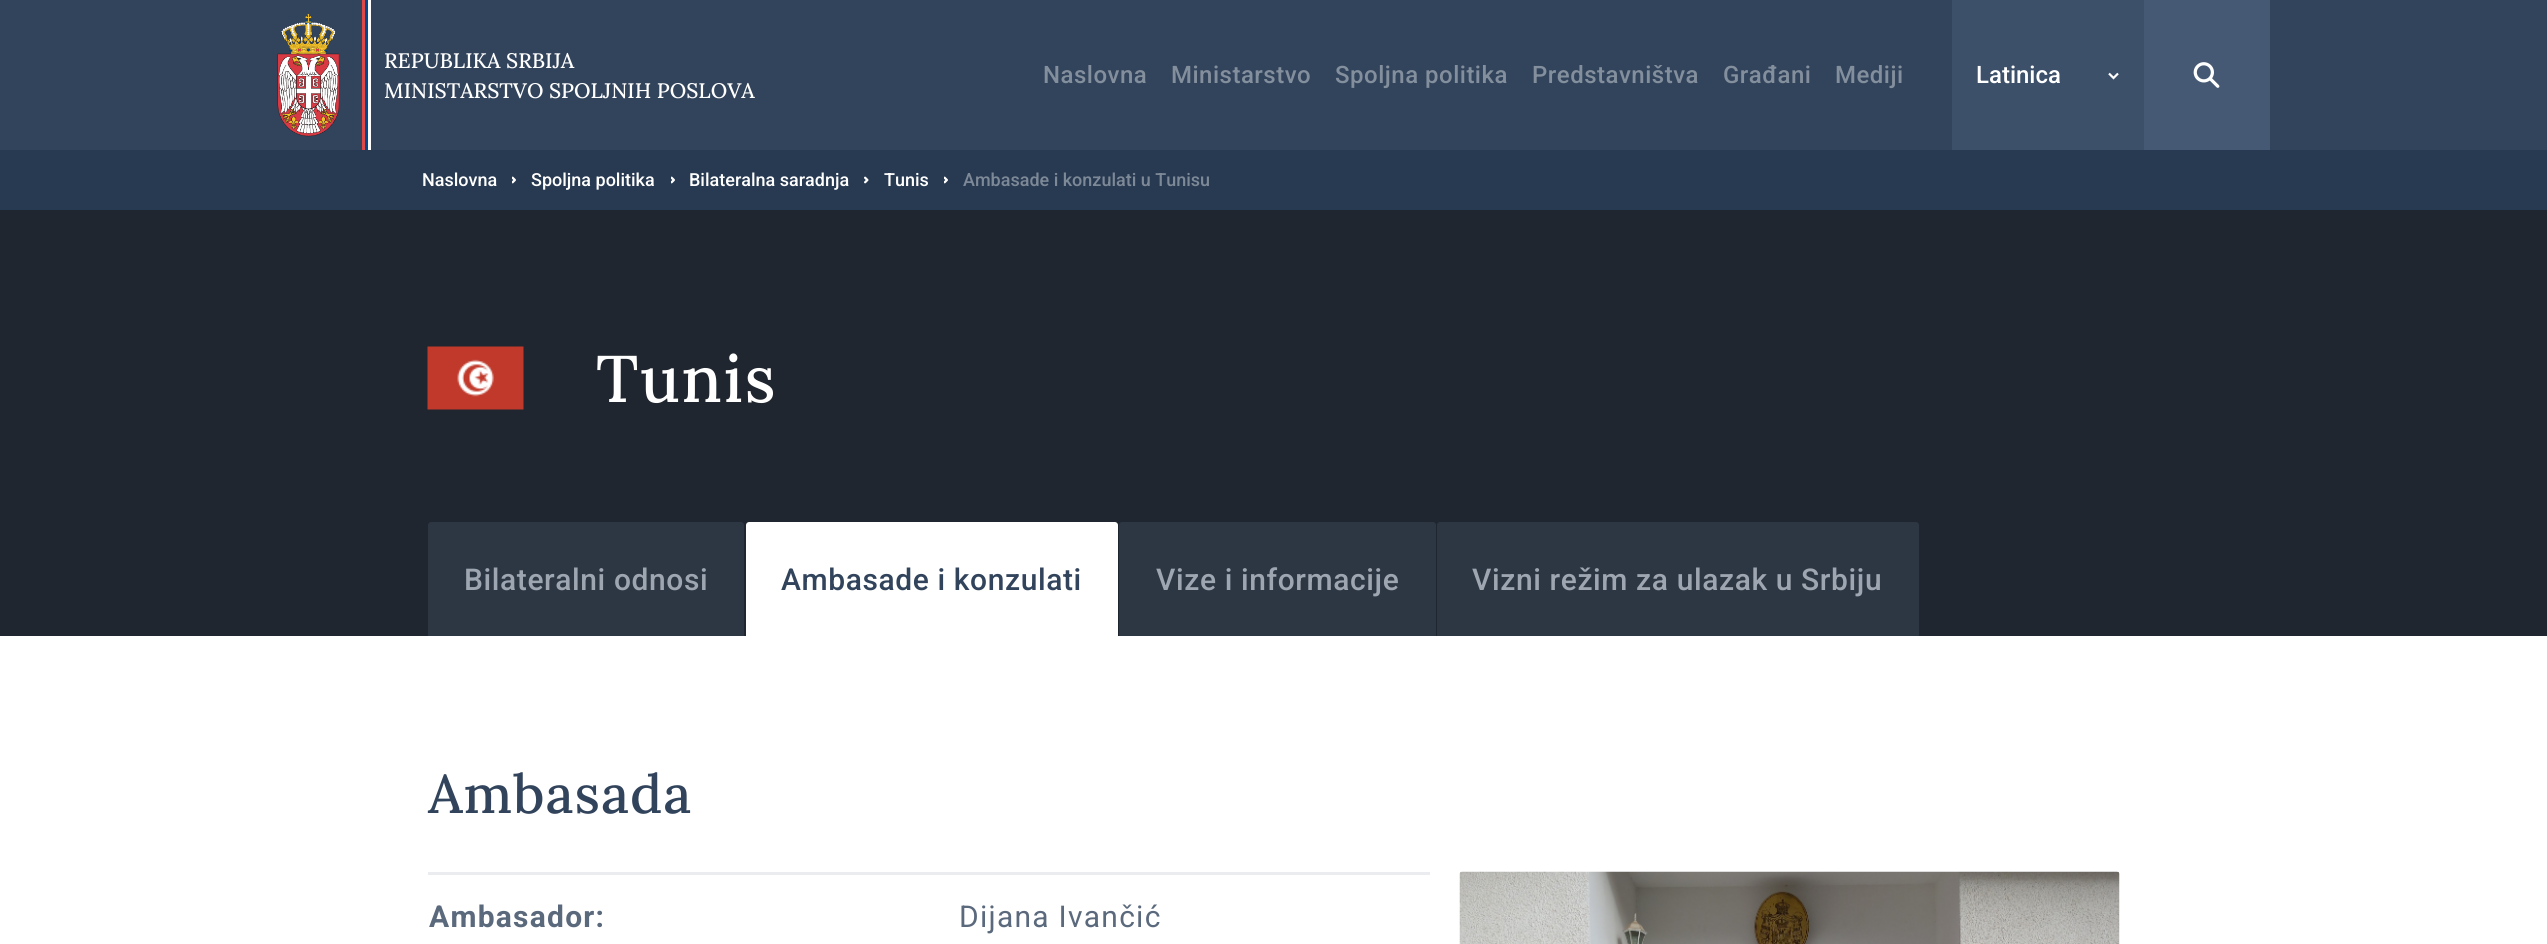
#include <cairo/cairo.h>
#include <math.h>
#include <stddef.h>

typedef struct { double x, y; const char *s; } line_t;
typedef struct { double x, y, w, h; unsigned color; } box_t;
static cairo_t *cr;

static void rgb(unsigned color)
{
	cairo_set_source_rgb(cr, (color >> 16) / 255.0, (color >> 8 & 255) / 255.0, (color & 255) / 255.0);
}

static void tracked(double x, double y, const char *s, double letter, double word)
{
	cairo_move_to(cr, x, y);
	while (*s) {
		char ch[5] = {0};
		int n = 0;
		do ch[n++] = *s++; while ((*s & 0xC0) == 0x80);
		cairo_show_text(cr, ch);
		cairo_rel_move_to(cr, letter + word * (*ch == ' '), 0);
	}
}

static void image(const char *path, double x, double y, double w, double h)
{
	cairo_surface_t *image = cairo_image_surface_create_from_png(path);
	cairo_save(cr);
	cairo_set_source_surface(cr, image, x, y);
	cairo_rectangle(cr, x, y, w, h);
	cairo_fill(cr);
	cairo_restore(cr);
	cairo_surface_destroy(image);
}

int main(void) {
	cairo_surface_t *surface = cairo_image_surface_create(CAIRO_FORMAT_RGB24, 2547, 944);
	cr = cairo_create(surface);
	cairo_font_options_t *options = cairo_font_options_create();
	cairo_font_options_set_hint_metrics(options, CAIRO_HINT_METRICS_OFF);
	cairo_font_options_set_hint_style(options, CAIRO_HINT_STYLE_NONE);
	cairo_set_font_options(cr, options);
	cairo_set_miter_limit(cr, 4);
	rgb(0xffffff);
	cairo_paint(cr);
	rgb(0x32445c);
	cairo_rectangle(cr, 0, 0, 2547, 150);
	cairo_fill(cr);
	image("img/1.png", 277, 13, 62, 124);
	{
		static const box_t items[] = {
			{362, 0, 3, 150, 0xdd4848},
			{365, 0, 3, 150, 0x00498f},
			{368, 0, 3, 150, 0xffffff},
			{1952, 0, 192, 150, 0x3d506a},
		};
		for (size_t i = 0; i < sizeof items / sizeof *items; i++) {
			rgb(items[i].color);
			cairo_rectangle(cr, items[i].x, items[i].y, items[i].w, items[i].h);
			cairo_fill(cr);
		}
	}
	cairo_new_path(cr);
	cairo_move_to(cr, 2118, 73.5);
	cairo_line_to(cr, 2113.5, 78);
	cairo_line_to(cr, 2109, 73.5);
	rgb(0xffffff);
	cairo_set_line_width(cr, 2.2);
	cairo_stroke(cr);
	rgb(0x455974);
	cairo_rectangle(cr, 2144, 0, 126, 150);
	cairo_fill(cr);
	image("img/2.png", 2193, 62, 27, 26);
	rgb(0x283a52);
	cairo_rectangle(cr, 0, 150, 2547, 60);
	cairo_fill(cr);
	image("img/3.png", 512, 176, 4, 8);
	image("img/3.png", 671, 176, 4, 8);
	image("img/4.png", 864, 176, 5, 8);
	image("img/3.png", 944, 176, 4, 8);
	rgb(0x1f262f);
	cairo_rectangle(cr, 0, 210, 2547, 426);
	cairo_fill(cr);
	image("img/5.png", 427, 346, 97, 64);
	rgb(0x2d3744);
	cairo_new_path(cr);
	cairo_move_to(cr, 431, 522);
	cairo_line_to(cr, 741, 522);
	cairo_curve_to(cr, 742.5, 522, 744, 523.5, 744, 525);
	cairo_line_to(cr, 744, 636);
	cairo_line_to(cr, 428, 636);
	cairo_line_to(cr, 428, 525);
	cairo_curve_to(cr, 428, 523.5, 429.5, 522, 431, 522);
	cairo_close_path(cr);
	cairo_fill(cr);
	rgb(0xffffff);
	cairo_new_path(cr);
	cairo_move_to(cr, 749, 522);
	cairo_line_to(cr, 1115, 522);
	cairo_curve_to(cr, 1116.5, 522, 1118, 523.5, 1118, 525);
	cairo_line_to(cr, 1118, 636);
	cairo_line_to(cr, 746, 636);
	cairo_line_to(cr, 746, 525);
	cairo_curve_to(cr, 746, 523.5, 747.5, 522, 749, 522);
	cairo_close_path(cr);
	cairo_fill(cr);
	rgb(0x2d3744);
	cairo_new_path(cr);
	cairo_move_to(cr, 1122, 522);
	cairo_line_to(cr, 1433, 522);
	cairo_curve_to(cr, 1434.5, 522, 1436, 523.5, 1436, 525);
	cairo_line_to(cr, 1436, 636);
	cairo_line_to(cr, 1119, 636);
	cairo_line_to(cr, 1119, 525);
	cairo_curve_to(cr, 1119, 523.5, 1120.5, 522, 1122, 522);
	cairo_close_path(cr);
	cairo_fill(cr);
	cairo_new_path(cr);
	cairo_move_to(cr, 1440, 522);
	cairo_line_to(cr, 1916, 522);
	cairo_curve_to(cr, 1917.5, 522, 1919, 523.5, 1919, 525);
	cairo_line_to(cr, 1919, 636);
	cairo_line_to(cr, 1437, 636);
	cairo_line_to(cr, 1437, 525);
	cairo_curve_to(cr, 1437, 523.5, 1438.5, 522, 1440, 522);
	cairo_close_path(cr);
	cairo_fill(cr);
	rgb(0xebecef);
	cairo_rectangle(cr, 428, 872, 1002, 3);
	cairo_fill(cr);
	image("img/6.png", 1459, 871, 661, 73);
	cairo_select_font_face(cr, "Lora Medium", CAIRO_FONT_SLANT_NORMAL, CAIRO_FONT_WEIGHT_NORMAL);
	cairo_set_font_size(cr, 21);
	rgb(0xffffff);
	cairo_move_to(cr, 384, 68);
	cairo_show_text(cr, "REPUBLIKA SRBIJA");
	cairo_move_to(cr, 384, 98);
	cairo_show_text(cr, "MINISTARSTVO SPOLJNIH POSLOVA");
	cairo_select_font_face(cr, "Roboto Medium", CAIRO_FONT_SLANT_NORMAL, CAIRO_FONT_WEIGHT_NORMAL);
	cairo_set_font_size(cr, 24);
	rgb(0x848f9d);
	{
		static const line_t items[] = {
			{1043, 83, "Naslovna"},
			{1171, 83, "Ministarstvo"},
			{1335, 83, "Spoljna politika"},
			{1532, 83, "Predstavništva"},
			{1723, 83, "Građani"},
			{1835, 83, "Mediji"},
		};
		for (size_t i = 0; i < sizeof items / sizeof *items; i++) {
			tracked(items[i].x, items[i].y, items[i].s, 0.5, 0);
		}
	}
	rgb(0xffffff);
	cairo_move_to(cr, 1976, 83);
	cairo_show_text(cr, "Latinica");
	cairo_set_font_size(cr, 18);
	{
		static const line_t items[] = {
			{422, 186, "Naslovna"},
			{531, 186, "Spoljna politika"},
			{689, 186, "Bilateralna saradnja"},
			{884, 186, "Tunis"},
		};
		for (size_t i = 0; i < sizeof items / sizeof *items; i++) {
			cairo_move_to(cr, items[i].x, items[i].y);
			cairo_show_text(cr, items[i].s);
		}
	}
	rgb(0x7e8997);
	cairo_move_to(cr, 963, 186);
	cairo_show_text(cr, "Ambasade i konzulati u Tunisu");
	cairo_select_font_face(cr, "Lora Medium", CAIRO_FONT_SLANT_NORMAL, CAIRO_FONT_WEIGHT_NORMAL);
	cairo_set_font_size(cr, 66);
	rgb(0xffffff);
	tracked(596, 402, "Tunis", 1.5, 0);
	cairo_select_font_face(cr, "Roboto Medium", CAIRO_FONT_SLANT_NORMAL, CAIRO_FONT_WEIGHT_NORMAL);
	cairo_set_font_size(cr, 30);
	rgb(0x9ea6b1);
	tracked(464, 590, "Bilateralni odnosi", 0.6, 0);
	rgb(0x32445c);
	tracked(781, 590, "Ambasade i konzulati", 0.6, 0);
	rgb(0x9ea6b1);
	tracked(1156, 590, "Vize i informacije", 0.6, 0);
	tracked(1472, 590, "Vizni režim za ulazak u Srbiju", 0.6, 0);
	cairo_select_font_face(cr, "Lora Medium", CAIRO_FONT_SLANT_NORMAL, CAIRO_FONT_WEIGHT_NORMAL);
	cairo_set_font_size(cr, 54);
	rgb(0x32445c);
	tracked(428, 813, "Ambasada", 1, 0);
	cairo_select_font_face(cr, "Roboto", CAIRO_FONT_SLANT_NORMAL, CAIRO_FONT_WEIGHT_BOLD);
	cairo_set_font_size(cr, 30);
	rgb(0x5b697d);
	tracked(429, 927, "Ambasador:", 1.25, 0);
	cairo_select_font_face(cr, "Roboto", CAIRO_FONT_SLANT_NORMAL, CAIRO_FONT_WEIGHT_NORMAL);
	tracked(959, 927, "Dijana Ivančić", 1.25, 0);
	cairo_surface_write_to_png(surface, "page.png");
	cairo_font_options_destroy(options);
	cairo_destroy(cr);
	cairo_surface_destroy(surface);
	return 0;
}
